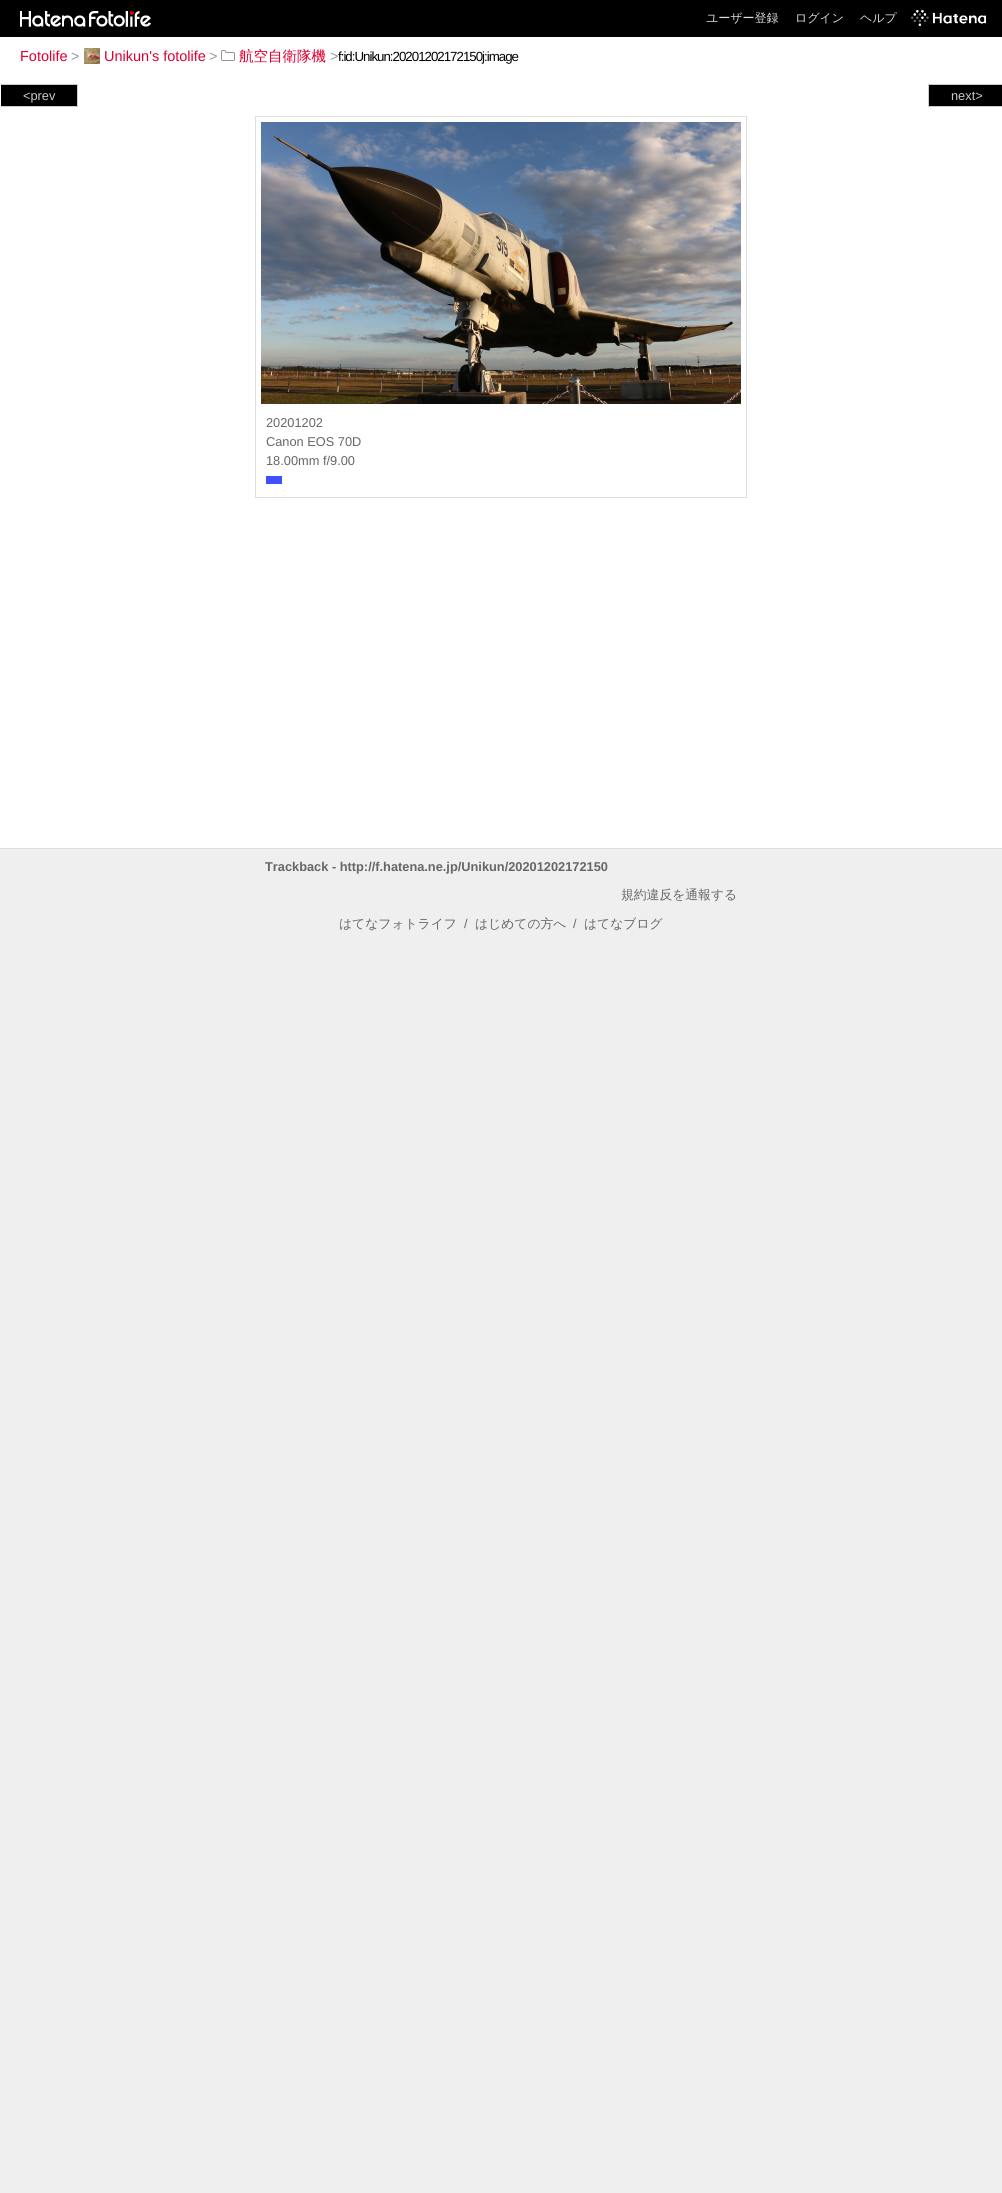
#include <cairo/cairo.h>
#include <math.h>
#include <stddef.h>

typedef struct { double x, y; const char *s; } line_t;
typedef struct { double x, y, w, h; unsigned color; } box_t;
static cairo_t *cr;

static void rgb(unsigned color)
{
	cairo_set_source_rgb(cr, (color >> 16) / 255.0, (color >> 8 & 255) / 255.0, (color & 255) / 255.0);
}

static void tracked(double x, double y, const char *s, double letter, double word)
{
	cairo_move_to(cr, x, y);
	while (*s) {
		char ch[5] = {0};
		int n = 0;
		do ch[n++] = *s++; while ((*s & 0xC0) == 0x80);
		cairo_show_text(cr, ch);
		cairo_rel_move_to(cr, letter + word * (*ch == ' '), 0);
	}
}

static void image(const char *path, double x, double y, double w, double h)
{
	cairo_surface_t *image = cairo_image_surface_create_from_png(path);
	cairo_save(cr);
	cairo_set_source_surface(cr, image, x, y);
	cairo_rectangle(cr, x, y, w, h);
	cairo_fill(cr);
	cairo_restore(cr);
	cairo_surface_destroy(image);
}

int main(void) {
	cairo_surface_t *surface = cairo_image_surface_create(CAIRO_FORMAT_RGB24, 1002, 2193);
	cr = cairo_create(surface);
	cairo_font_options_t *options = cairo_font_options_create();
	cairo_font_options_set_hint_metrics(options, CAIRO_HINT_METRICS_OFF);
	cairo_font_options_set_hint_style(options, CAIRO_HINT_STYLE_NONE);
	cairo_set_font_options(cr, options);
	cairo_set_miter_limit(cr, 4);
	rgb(0xefefef);
	cairo_paint(cr);
	rgb(0x000000);
	cairo_rectangle(cr, 0, 0, 1002, 37);
	cairo_fill(cr);
	image("img/1.png", 20, 11, 66, 16);
	image("img/2.png", 89, 11, 62, 16);
	image("img/3.png", 911, 10, 75, 16);
	rgb(0xffffff);
	cairo_rectangle(cr, 0, 37, 1002, 811);
	cairo_fill(cr);
	image("img/4.png", 84, 48, 16, 16);
	image("img/5.png", 221, 50, 14, 11);
	{
		static const box_t items[] = {
			{0, 848, 1002, 1, 0xdedede},
			{1, 85, 76, 21, 0x000000},
			{1, 84, 77, 1, 0xcccccc},
			{77, 84, 1, 23, 0xcccccc},
			{1, 106, 77, 1, 0xcccccc},
			{929, 85, 73, 21, 0x000000},
			{928, 84, 74, 1, 0xcccccc},
			{928, 106, 74, 1, 0xcccccc},
			{928, 84, 1, 23, 0xcccccc},
		};
		for (size_t i = 0; i < sizeof items / sizeof *items; i++) {
			rgb(items[i].color);
			cairo_rectangle(cr, items[i].x, items[i].y, items[i].w, items[i].h);
			cairo_fill(cr);
		}
	}
	cairo_rectangle(cr, 255.5, 116.5, 491, 381);
	rgb(0xdedede);
	cairo_set_line_width(cr, 1);
	cairo_stroke(cr);
	image("img/6.png", 261, 122, 480, 282);
	rgb(0x4050ff);
	cairo_rectangle(cr, 266, 476, 16, 8);
	cairo_fill(cr);
	cairo_select_font_face(cr, "WenQuanYi Zen Hei Medium", CAIRO_FONT_SLANT_NORMAL, CAIRO_FONT_WEIGHT_NORMAL);
	cairo_set_font_size(cr, 12);
	rgb(0xdddddd);
	{
		static const line_t items[] = {
			{706, 22, "ユーザー登録"},
			{795, 22, "ログイン"},
			{860, 22, "ヘルプ"},
		};
		for (size_t i = 0; i < sizeof items / sizeof *items; i++) {
			cairo_move_to(cr, items[i].x, items[i].y);
			cairo_show_text(cr, items[i].s);
		}
	}
	cairo_select_font_face(cr, "Liberation Sans", CAIRO_FONT_SLANT_NORMAL, CAIRO_FONT_WEIGHT_NORMAL);
	cairo_set_font_size(cr, 14.5);
	rgb(0xde002f);
	cairo_move_to(cr, 20, 61);
	cairo_show_text(cr, "Fotolife");
	rgb(0x999999);
	cairo_move_to(cr, 71, 61);
	cairo_show_text(cr, ">");
	rgb(0xde002f);
	cairo_move_to(cr, 104, 61);
	cairo_show_text(cr, "Unikun's fotolife");
	rgb(0x999999);
	cairo_move_to(cr, 209, 61);
	cairo_show_text(cr, ">");
	cairo_select_font_face(cr, "WenQuanYi Zen Hei Medium", CAIRO_FONT_SLANT_NORMAL, CAIRO_FONT_WEIGHT_NORMAL);
	rgb(0xde002f);
	cairo_move_to(cr, 239, 61);
	cairo_show_text(cr, "航空自衛隊機");
	cairo_select_font_face(cr, "Liberation Sans", CAIRO_FONT_SLANT_NORMAL, CAIRO_FONT_WEIGHT_NORMAL);
	rgb(0x999999);
	cairo_move_to(cr, 330, 61);
	cairo_show_text(cr, ">");
	cairo_set_font_size(cr, 13.3);
	rgb(0x000000);
	tracked(338, 61, "f:id:Unikun:20201202172150j:image", -1, 0);
	cairo_set_font_size(cr, 12.8);
	rgb(0xcccccc);
	cairo_move_to(cr, 23, 100);
	cairo_show_text(cr, "<prev");
	cairo_move_to(cr, 951, 100);
	cairo_show_text(cr, "next>");
	rgb(0x666666);
	{
		static const line_t items[] = {
			{266, 427, "20201202"},
			{266, 446, "Canon EOS 70D"},
			{266, 465, "18.00mm f/9.00"},
		};
		for (size_t i = 0; i < sizeof items / sizeof *items; i++) {
			cairo_move_to(cr, items[i].x, items[i].y);
			cairo_show_text(cr, items[i].s);
		}
	}
	cairo_select_font_face(cr, "Liberation Sans", CAIRO_FONT_SLANT_NORMAL, CAIRO_FONT_WEIGHT_BOLD);
	cairo_move_to(cr, 265, 871);
	cairo_show_text(cr, "Trackback - http://f.hatena.ne.jp/Unikun/20201202172150");
	cairo_select_font_face(cr, "WenQuanYi Zen Hei Medium", CAIRO_FONT_SLANT_NORMAL, CAIRO_FONT_WEIGHT_NORMAL);
	cairo_move_to(cr, 621, 899);
	cairo_show_text(cr, "規約違反を通報する");
	cairo_move_to(cr, 339, 928);
	cairo_show_text(cr, "はてなフォトライフ");
	cairo_select_font_face(cr, "Liberation Sans", CAIRO_FONT_SLANT_NORMAL, CAIRO_FONT_WEIGHT_NORMAL);
	cairo_move_to(cr, 464, 928);
	cairo_show_text(cr, "/");
	cairo_select_font_face(cr, "WenQuanYi Zen Hei Medium", CAIRO_FONT_SLANT_NORMAL, CAIRO_FONT_WEIGHT_NORMAL);
	cairo_move_to(cr, 475, 928);
	cairo_show_text(cr, "はじめての方へ");
	cairo_select_font_face(cr, "Liberation Sans", CAIRO_FONT_SLANT_NORMAL, CAIRO_FONT_WEIGHT_NORMAL);
	cairo_move_to(cr, 573, 928);
	cairo_show_text(cr, "/");
	cairo_select_font_face(cr, "WenQuanYi Zen Hei Medium", CAIRO_FONT_SLANT_NORMAL, CAIRO_FONT_WEIGHT_NORMAL);
	cairo_move_to(cr, 584, 928);
	cairo_show_text(cr, "はてなブログ");
	cairo_surface_write_to_png(surface, "page.png");
	cairo_font_options_destroy(options);
	cairo_destroy(cr);
	cairo_surface_destroy(surface);
	return 0;
}
